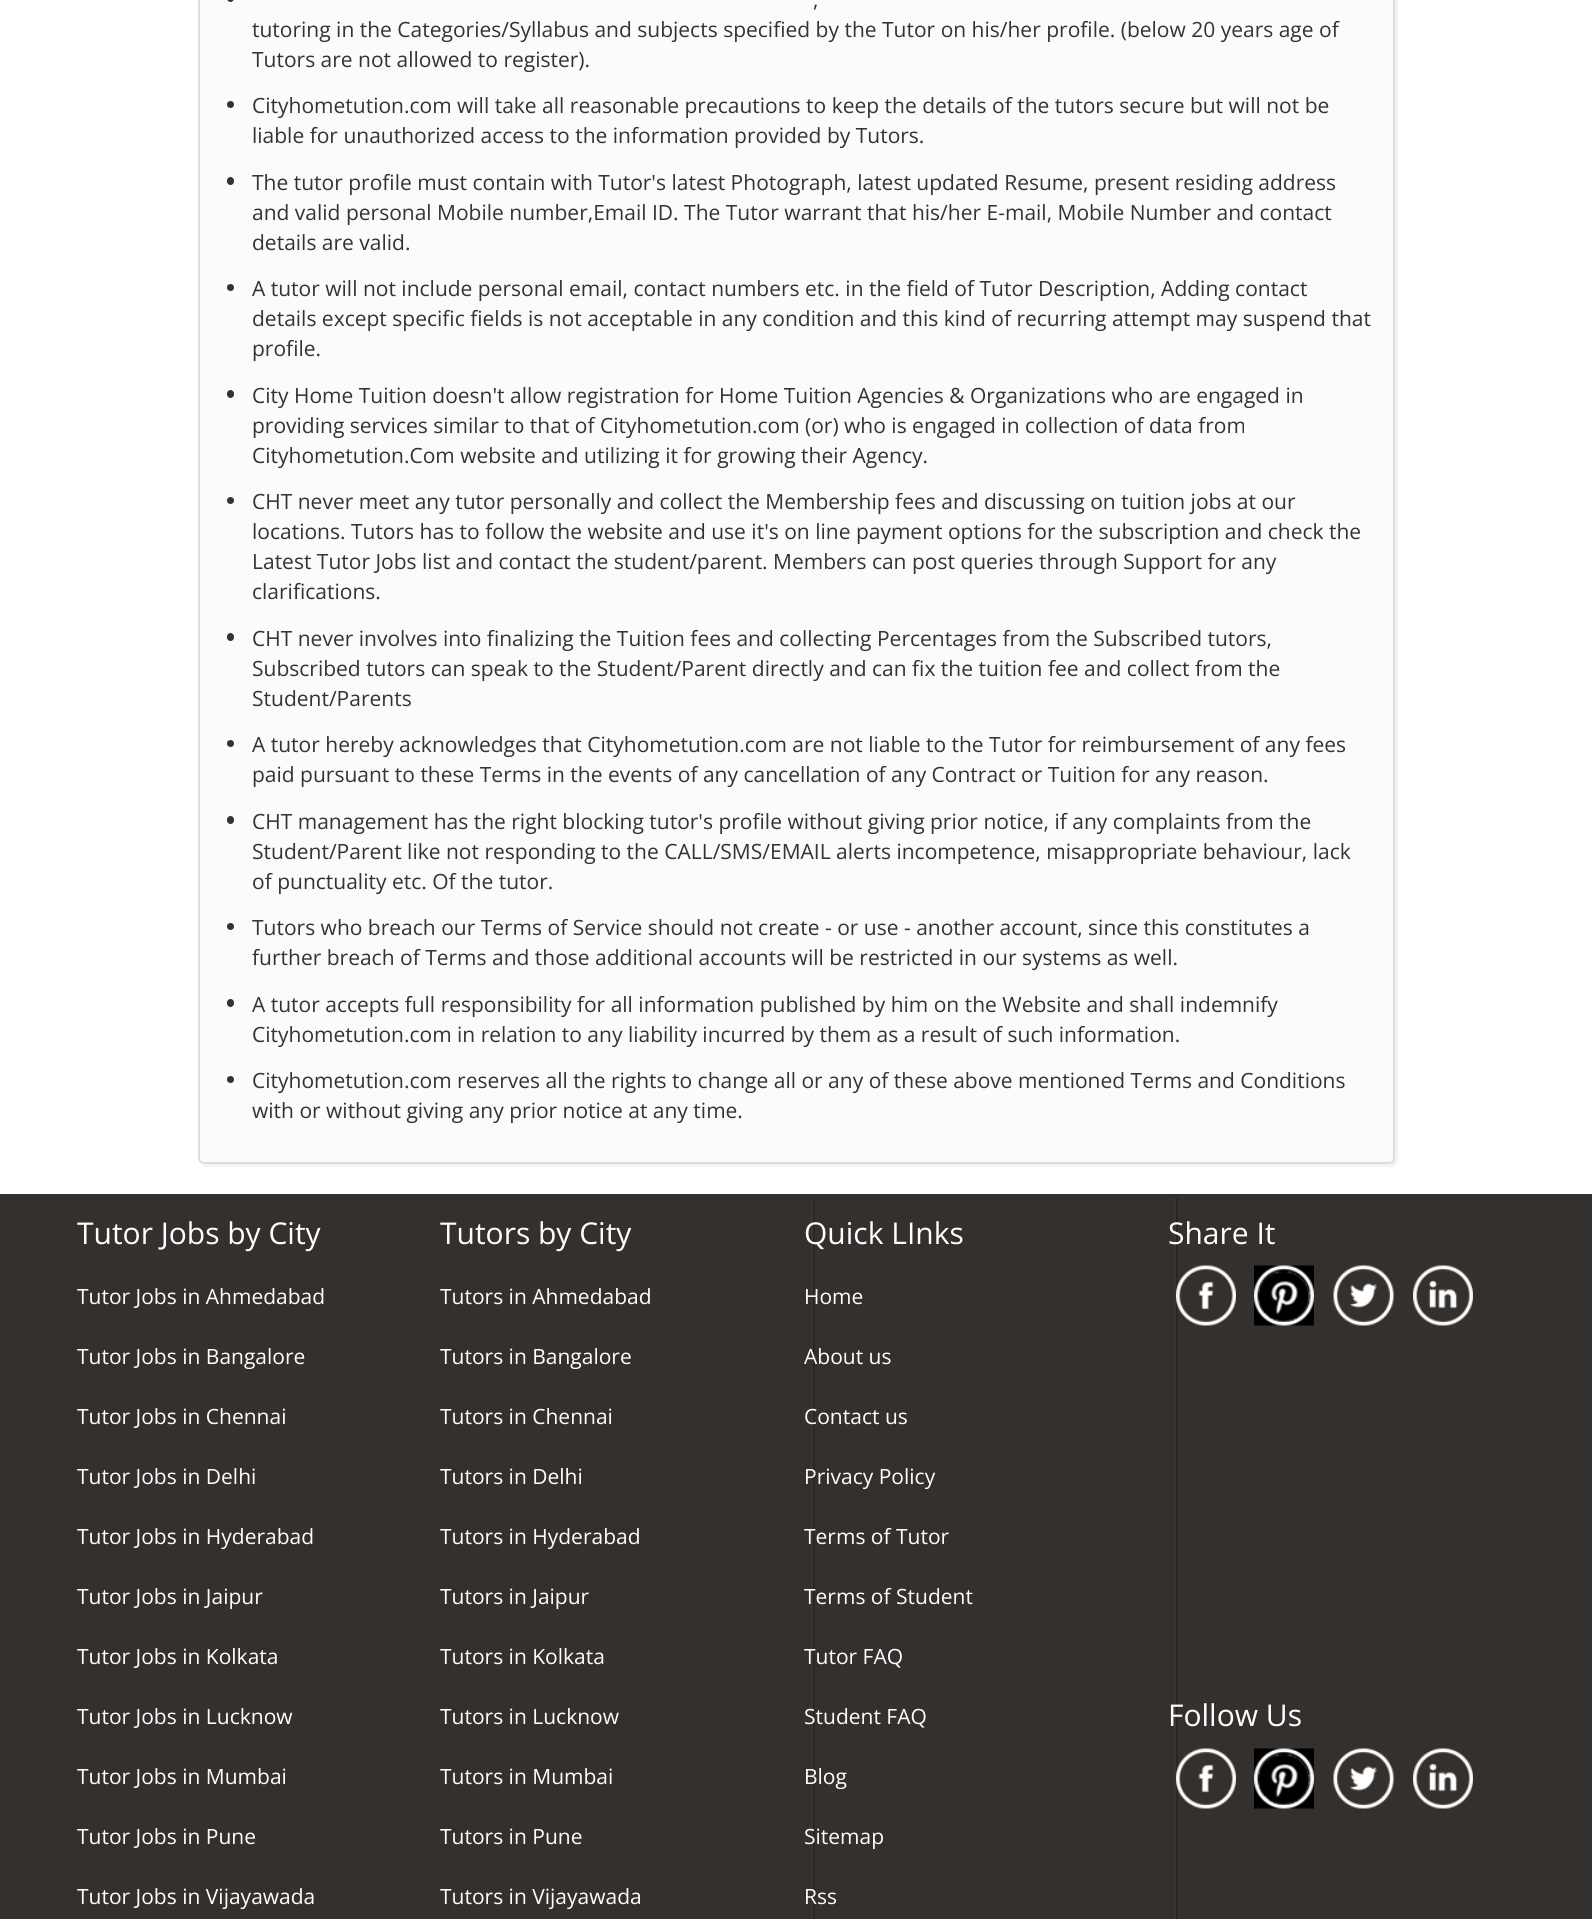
#include <cairo/cairo.h>
#include <math.h>
#include <stddef.h>

typedef struct { double x, y; const char *s; } line_t;
static cairo_t *cr;

static void rgb(unsigned color)
{
	cairo_set_source_rgb(cr, (color >> 16) / 255.0, (color >> 8 & 255) / 255.0, (color & 255) / 255.0);
}

static void rrect(double x, double y, double w, double h, double r)
{
	cairo_new_sub_path(cr);
	cairo_arc(cr, x + w - r, y + h - r, r, 0, M_PI / 2);
	cairo_arc(cr, x + r, y + h - r, r, M_PI / 2, M_PI);
	cairo_arc(cr, x + r, y + r, r, M_PI, 1.5 * M_PI);
	cairo_arc(cr, x + w - r, y + r, r, 1.5 * M_PI, 2 * M_PI);
	cairo_close_path(cr);
}

static void soft_shadow(double x, double y, double w, double h, double r, double blur, double alpha)
{
	cairo_push_group_with_content(cr, CAIRO_CONTENT_ALPHA);
	cairo_set_operator(cr, CAIRO_OPERATOR_SOURCE);
	for (int i = 15; i >= -15 && fmin(w, h) + blur * i / 3 > 0; i -= 2) {
		double e = blur * i / 6;
		cairo_set_source_rgba(cr, 0, 0, 0, alpha * erfc((i - 1) / 8.5) / 2);
		rrect(x - e, y - e, w + 2 * e, h + 2 * e, fmax(0, fmin(r + e + blur * .6, fmin(w, h) / 2 + e)));
		cairo_fill(cr);
	}
	cairo_pattern_t *soft = cairo_pop_group(cr);
	cairo_mask(cr, soft);
	cairo_pattern_destroy(soft);
}

static void image(const char *path, double x, double y, double w, double h)
{
	cairo_surface_t *image = cairo_image_surface_create_from_png(path);
	cairo_save(cr);
	cairo_set_source_surface(cr, image, x, y);
	cairo_rectangle(cr, x, y, w, h);
	cairo_fill(cr);
	cairo_restore(cr);
	cairo_surface_destroy(image);
}

int main(void) {
	cairo_surface_t *surface = cairo_image_surface_create(CAIRO_FORMAT_RGB24, 1592, 1919);
	cr = cairo_create(surface);
	cairo_font_options_t *options = cairo_font_options_create();
	cairo_font_options_set_hint_metrics(options, CAIRO_HINT_METRICS_OFF);
	cairo_font_options_set_hint_style(options, CAIRO_HINT_STYLE_NONE);
	cairo_set_font_options(cr, options);
	cairo_set_miter_limit(cr, 4);
	rgb(0xffffff);
	cairo_paint(cr);
	rgb(0x000000);
	soft_shadow(201, -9, 1197, 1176, 6, 1, 0.05);
	rgb(0xfbfbfb);
	rrect(199, -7, 1195, 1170, 5);
	cairo_fill_preserve(cr);
	rgb(0xdddddd);
	cairo_stroke(cr);
	rgb(0x333333);
	rrect(227, -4, 7, 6, 3.5);
	cairo_fill(cr);
	cairo_arc(cr, 230.5, 104.5, 3.5, 0, 2 * M_PI);
	cairo_fill(cr);
	rrect(227, 177, 7, 8, 3.5);
	cairo_fill(cr);
	cairo_arc(cr, 230.5, 287.5, 3.5, 0, 2 * M_PI);
	cairo_fill(cr);
	rrect(227, 390, 7, 8, 3.5);
	cairo_fill(cr);
	cairo_arc(cr, 230.5, 500.5, 3.5, 0, 2 * M_PI);
	cairo_fill(cr);
	rrect(227, 633, 7, 8, 3.5);
	cairo_fill(cr);
	cairo_arc(cr, 230.5, 743.5, 3.5, 0, 2 * M_PI);
	cairo_fill(cr);
	rrect(227, 816, 7, 8, 3.5);
	cairo_fill(cr);
	cairo_arc(cr, 230.5, 926.5, 3.5, 0, 2 * M_PI);
	cairo_fill(cr);
	rrect(227, 999, 7, 8, 3.5);
	cairo_fill(cr);
	cairo_arc(cr, 230.5, 1079.5, 3.5, 0, 2 * M_PI);
	cairo_fill(cr);
	rgb(0x34302d);
	cairo_rectangle(cr, 0, 1194, 1592, 725);
	cairo_fill(cr);
	rgb(0x322e2a);
	cairo_rectangle(cr, 447, 1198, 3, 721);
	cairo_fill(cr);
	image("img/1.png", 811, 1198, 4, 721);
	image("img/2.png", 1174, 1198, 4, 721);
	image("img/3.png", 1176, 1265, 60, 61);
	image("img/4.png", 1254, 1265, 60, 61);
	image("img/5.png", 1333, 1265, 61, 61);
	image("img/6.png", 1413, 1265, 60, 61);
	image("img/3.png", 1176, 1748, 60, 61);
	image("img/4.png", 1254, 1748, 60, 61);
	image("img/5.png", 1333, 1748, 61, 61);
	image("img/6.png", 1413, 1748, 60, 61);
	cairo_select_font_face(cr, "Open Sans", CAIRO_FONT_SLANT_NORMAL, CAIRO_FONT_WEIGHT_NORMAL);
	cairo_set_font_size(cr, 21);
	rgb(0x333333);
	{
		static const line_t items[] = {
			{813, 7, ","},
			{252, 37, "tutoring in the Categories/Syllabus and subjects specified by the Tutor on his/her profile. (below 20 years age of"},
			{252, 67, "Tutors are not allowed to register)."},
			{252, 113, "Cityhometution.com will take all reasonable precautions to keep the details of the tutors secure but will not be"},
			{252, 143, "liable for unauthorized access to the information provided by Tutors."},
			{252, 190, "The tutor profile must contain with Tutor's latest Photograph, latest updated Resume, present residing address"},
			{252, 220, "and valid personal Mobile number,Email ID. The Tutor warrant that his/her E-mail, Mobile Number and contact"},
			{252, 250, "details are valid."},
			{252, 296, "A tutor will not include personal email, contact numbers etc. in the field of Tutor Description, Adding contact"},
			{252, 326, "details except specific fields is not acceptable in any condition and this kind of recurring attempt may suspend that"},
			{252, 356, "profile."},
			{252, 403, "City Home Tuition doesn't allow registration for Home Tuition Agencies & Organizations who are engaged in"},
			{252, 433, "providing services similar to that of Cityhometution.com (or) who is engaged in collection of data from"},
			{252, 463, "Cityhometution.Com website and utilizing it for growing their Agency."},
			{252, 509, "CHT never meet any tutor personally and collect the Membership fees and discussing on tuition jobs at our"},
			{252, 539, "locations. Tutors has to follow the website and use it's on line payment options for the subscription and check the"},
			{252, 569, "Latest Tutor Jobs list and contact the student/parent. Members can post queries through Support for any"},
			{252, 599, "clarifications."},
			{252, 646, "CHT never involves into finalizing the Tuition fees and collecting Percentages from the Subscribed tutors,"},
			{252, 676, "Subscribed tutors can speak to the Student/Parent directly and can fix the tuition fee and collect from the"},
			{252, 706, "Student/Parents"},
			{252, 752, "A tutor hereby acknowledges that Cityhometution.com are not liable to the Tutor for reimbursement of any fees"},
			{252, 782, "paid pursuant to these Terms in the events of any cancellation of any Contract or Tuition for any reason."},
			{252, 829, "CHT management has the right blocking tutor's profile without giving prior notice, if any complaints from the"},
			{252, 859, "Student/Parent like not responding to the CALL/SMS/EMAIL alerts incompetence, misappropriate behaviour, lack"},
			{252, 889, "of punctuality etc. Of the tutor."},
			{252, 935, "Tutors who breach our Terms of Service should not create - or use - another account, since this constitutes a"},
			{252, 965, "further breach of Terms and those additional accounts will be restricted in our systems as well."},
			{252, 1012, "A tutor accepts full responsibility for all information published by him on the Website and shall indemnify"},
			{252, 1042, "Cityhometution.com in relation to any liability incurred by them as a result of such information."},
			{252, 1088, "Cityhometution.com reserves all the rights to change all or any of these above mentioned Terms and Conditions"},
			{252, 1118, "with or without giving any prior notice at any time."},
		};
		for (size_t i = 0; i < sizeof items / sizeof *items; i++) {
			cairo_move_to(cr, items[i].x, items[i].y);
			cairo_show_text(cr, items[i].s);
		}
	}
	cairo_set_font_size(cr, 30);
	rgb(0xffffff);
	cairo_move_to(cr, 77, 1244);
	cairo_show_text(cr, "Tutor Jobs by City");
	cairo_set_font_size(cr, 21);
	{
		static const line_t items[] = {
			{77, 1304, "Tutor Jobs in Ahmedabad"},
			{77, 1364, "Tutor Jobs in Bangalore"},
			{77, 1424, "Tutor Jobs in Chennai"},
			{77, 1484, "Tutor Jobs in Delhi"},
			{77, 1544, "Tutor Jobs in Hyderabad"},
			{77, 1604, "Tutor Jobs in Jaipur"},
			{77, 1664, "Tutor Jobs in Kolkata"},
			{77, 1724, "Tutor Jobs in Lucknow"},
			{77, 1784, "Tutor Jobs in Mumbai"},
			{77, 1844, "Tutor Jobs in Pune"},
			{77, 1904, "Tutor Jobs in Vijayawada"},
		};
		for (size_t i = 0; i < sizeof items / sizeof *items; i++) {
			cairo_move_to(cr, items[i].x, items[i].y);
			cairo_show_text(cr, items[i].s);
		}
	}
	cairo_set_font_size(cr, 30);
	cairo_move_to(cr, 440, 1244);
	cairo_show_text(cr, "Tutors by City");
	cairo_set_font_size(cr, 21);
	{
		static const line_t items[] = {
			{440, 1304, "Tutors in Ahmedabad"},
			{440, 1364, "Tutors in Bangalore"},
			{440, 1424, "Tutors in Chennai"},
			{440, 1484, "Tutors in Delhi"},
			{440, 1544, "Tutors in Hyderabad"},
			{440, 1604, "Tutors in Jaipur"},
			{440, 1664, "Tutors in Kolkata"},
			{440, 1724, "Tutors in Lucknow"},
			{440, 1784, "Tutors in Mumbai"},
			{440, 1844, "Tutors in Pune"},
			{440, 1904, "Tutors in Vijayawada"},
		};
		for (size_t i = 0; i < sizeof items / sizeof *items; i++) {
			cairo_move_to(cr, items[i].x, items[i].y);
			cairo_show_text(cr, items[i].s);
		}
	}
	cairo_set_font_size(cr, 30);
	cairo_move_to(cr, 804, 1244);
	cairo_show_text(cr, "Quick LInks");
	cairo_set_font_size(cr, 21);
	{
		static const line_t items[] = {
			{804, 1304, "Home"},
			{804, 1364, "About us"},
			{804, 1424, "Contact us"},
			{804, 1484, "Privacy Policy"},
			{804, 1544, "Terms of Tutor"},
			{804, 1604, "Terms of Student"},
			{804, 1664, "Tutor FAQ"},
			{804, 1724, "Student FAQ"},
			{804, 1784, "Blog"},
			{804, 1844, "Sitemap"},
			{804, 1904, "Rss"},
		};
		for (size_t i = 0; i < sizeof items / sizeof *items; i++) {
			cairo_move_to(cr, items[i].x, items[i].y);
			cairo_show_text(cr, items[i].s);
		}
	}
	cairo_set_font_size(cr, 30);
	cairo_move_to(cr, 1168, 1244);
	cairo_show_text(cr, "Share It");
	cairo_move_to(cr, 1168, 1726);
	cairo_show_text(cr, "Follow Us");
	cairo_surface_write_to_png(surface, "page.png");
	cairo_font_options_destroy(options);
	cairo_destroy(cr);
	cairo_surface_destroy(surface);
	return 0;
}
